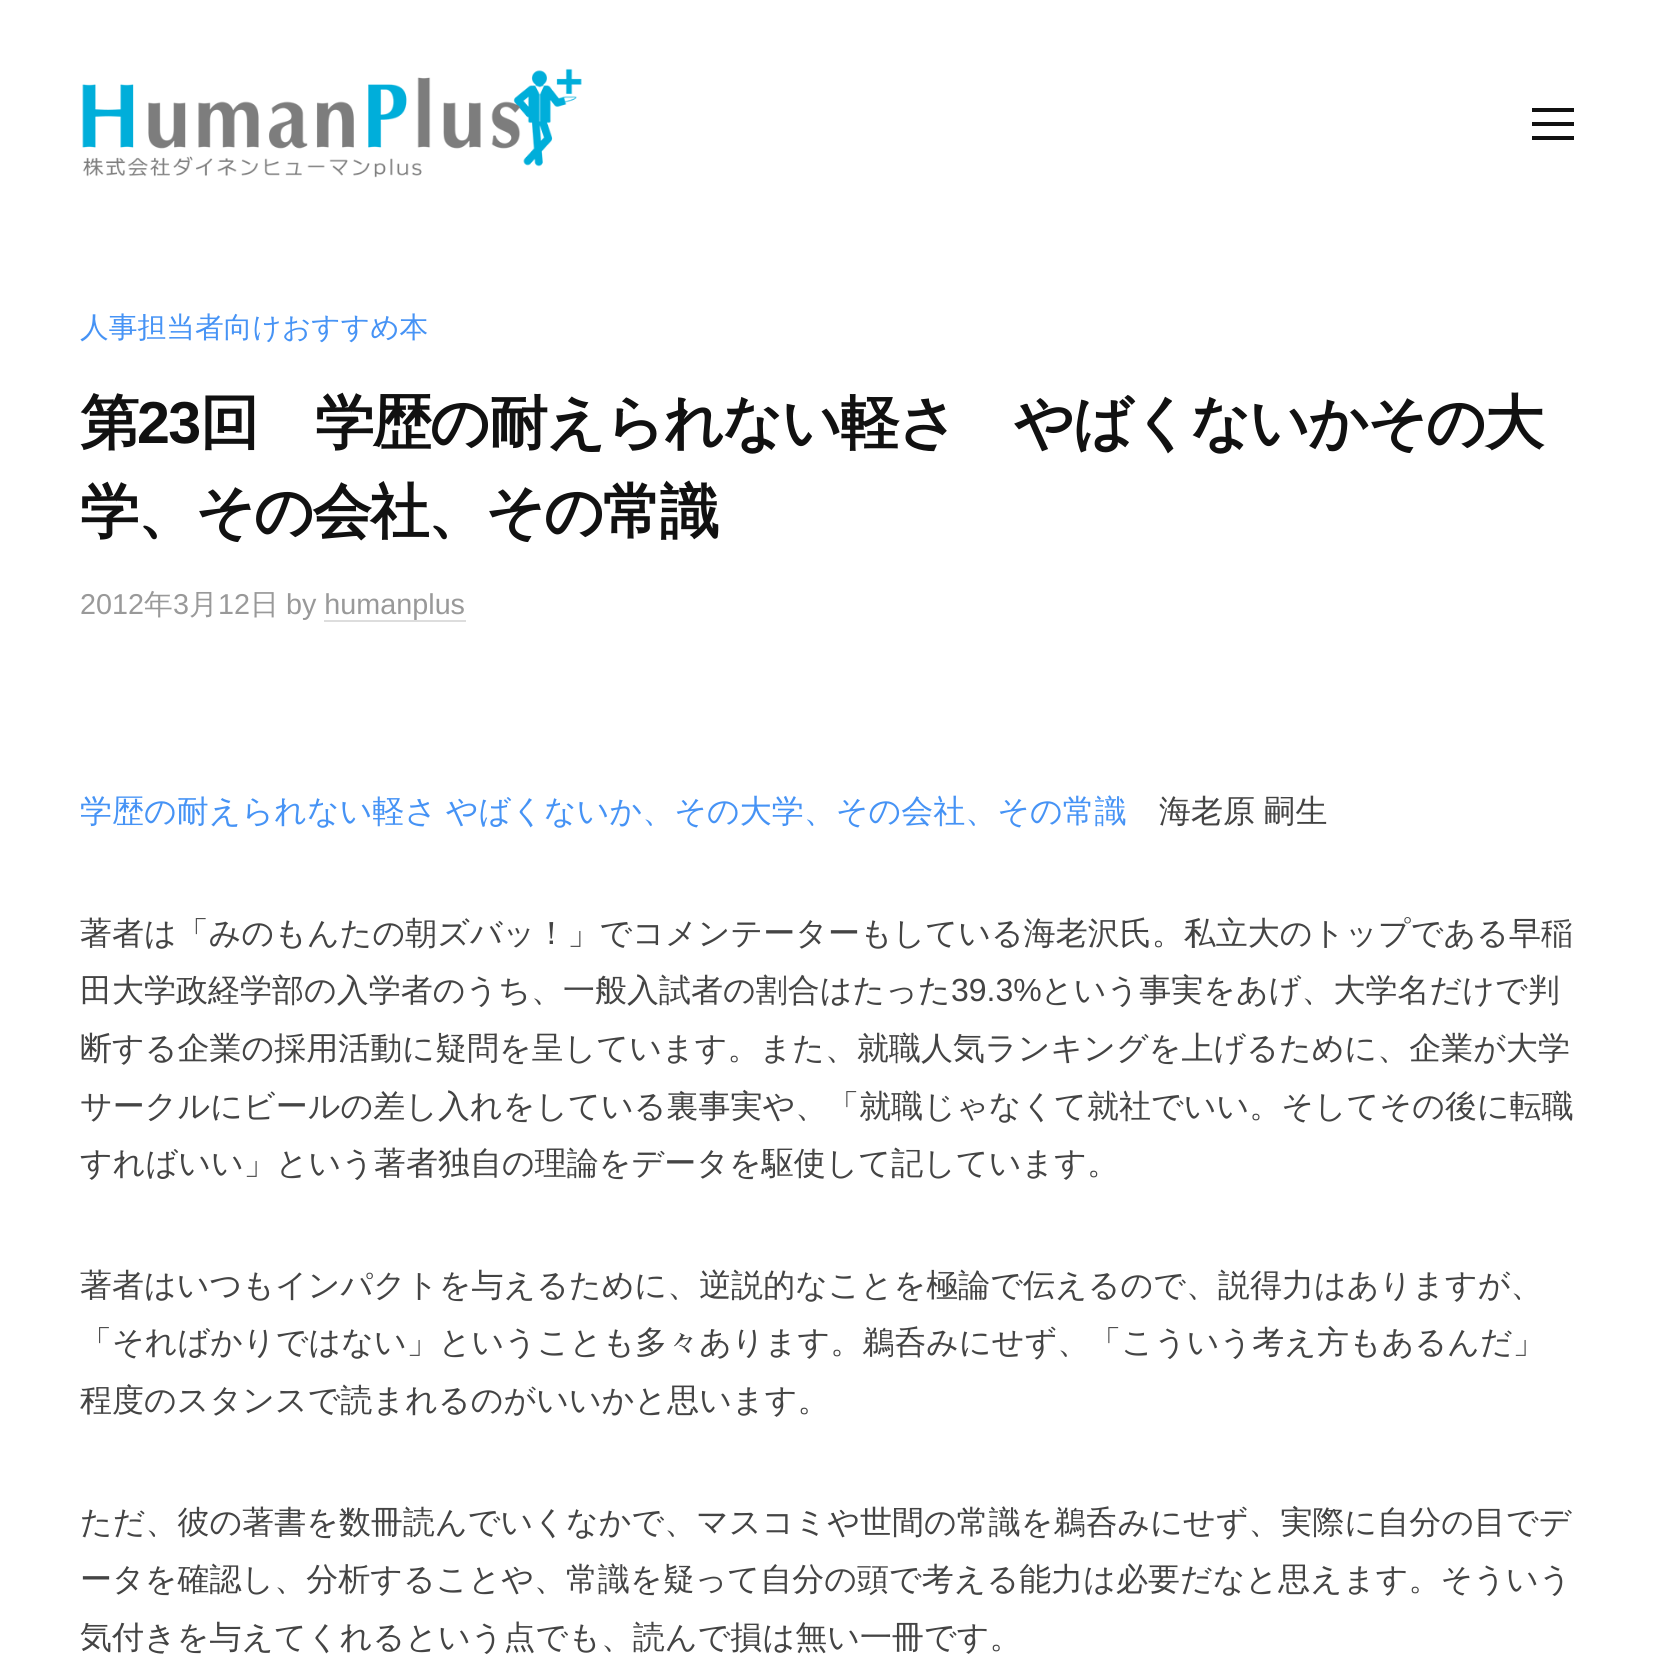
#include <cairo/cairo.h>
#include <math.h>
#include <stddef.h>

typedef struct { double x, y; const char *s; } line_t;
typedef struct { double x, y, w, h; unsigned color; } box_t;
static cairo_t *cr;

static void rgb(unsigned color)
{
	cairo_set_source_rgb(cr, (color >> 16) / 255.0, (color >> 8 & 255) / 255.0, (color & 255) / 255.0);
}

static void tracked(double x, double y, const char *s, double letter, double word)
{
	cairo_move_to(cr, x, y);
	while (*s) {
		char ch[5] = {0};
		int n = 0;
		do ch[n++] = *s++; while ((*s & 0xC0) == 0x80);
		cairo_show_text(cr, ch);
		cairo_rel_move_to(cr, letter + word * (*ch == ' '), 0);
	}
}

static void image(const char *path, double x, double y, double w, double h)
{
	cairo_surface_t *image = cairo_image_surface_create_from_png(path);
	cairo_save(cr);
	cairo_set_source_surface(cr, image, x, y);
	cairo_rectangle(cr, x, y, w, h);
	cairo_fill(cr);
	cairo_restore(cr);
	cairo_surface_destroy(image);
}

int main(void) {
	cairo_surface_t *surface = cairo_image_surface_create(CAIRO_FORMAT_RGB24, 1654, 1668);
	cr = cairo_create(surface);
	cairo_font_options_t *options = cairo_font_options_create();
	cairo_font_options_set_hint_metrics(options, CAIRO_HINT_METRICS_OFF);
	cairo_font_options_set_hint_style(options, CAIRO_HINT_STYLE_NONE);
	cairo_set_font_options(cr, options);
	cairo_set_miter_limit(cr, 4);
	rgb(0xffffff);
	cairo_paint(cr);
	image("img/1.png", 82, 68, 500, 110);
	{
		static const box_t items[] = {
			{1532, 122, 42, 4, 0x111111},
			{1532, 108, 42, 4, 0x111111},
			{1532, 136, 42, 4, 0x111111},
			{324, 620, 142, 2, 0xdddddd},
		};
		for (size_t i = 0; i < sizeof items / sizeof *items; i++) {
			rgb(items[i].color);
			cairo_rectangle(cr, items[i].x, items[i].y, items[i].w, items[i].h);
			cairo_fill(cr);
		}
	}
	cairo_select_font_face(cr, "WenQuanYi Zen Hei Medium", CAIRO_FONT_SLANT_NORMAL, CAIRO_FONT_WEIGHT_NORMAL);
	cairo_set_font_size(cr, 28.75);
	rgb(0x4693f5);
	cairo_move_to(cr, 80, 337);
	cairo_show_text(cr, "人事担当者向けおすすめ本");
	cairo_select_font_face(cr, "WenQuanYi Zen Hei", CAIRO_FONT_SLANT_NORMAL, CAIRO_FONT_WEIGHT_BOLD);
	cairo_set_font_size(cr, 59.2);
	rgb(0x111111);
	tracked(80, 443, "第", -1.75, 0);
	cairo_select_font_face(cr, "Liberation Sans", CAIRO_FONT_SLANT_NORMAL, CAIRO_FONT_WEIGHT_BOLD);
	tracked(137, 443, "23", -1.75, 0);
	cairo_select_font_face(cr, "WenQuanYi Zen Hei", CAIRO_FONT_SLANT_NORMAL, CAIRO_FONT_WEIGHT_BOLD);
	tracked(200, 443, "回　学歴の耐えられない軽さ　やばくないかその大", -1.75, 0);
	tracked(80, 532, "学、その会社、その常識", -1.75, 0);
	cairo_select_font_face(cr, "Liberation Sans", CAIRO_FONT_SLANT_NORMAL, CAIRO_FONT_WEIGHT_NORMAL);
	cairo_set_font_size(cr, 28.75);
	rgb(0x999999);
	cairo_move_to(cr, 80, 614);
	cairo_show_text(cr, "2012");
	cairo_select_font_face(cr, "WenQuanYi Zen Hei Medium", CAIRO_FONT_SLANT_NORMAL, CAIRO_FONT_WEIGHT_NORMAL);
	cairo_move_to(cr, 144, 614);
	cairo_show_text(cr, "年");
	cairo_select_font_face(cr, "Liberation Sans", CAIRO_FONT_SLANT_NORMAL, CAIRO_FONT_WEIGHT_NORMAL);
	cairo_move_to(cr, 173, 614);
	cairo_show_text(cr, "3");
	cairo_select_font_face(cr, "WenQuanYi Zen Hei Medium", CAIRO_FONT_SLANT_NORMAL, CAIRO_FONT_WEIGHT_NORMAL);
	cairo_move_to(cr, 189, 614);
	cairo_show_text(cr, "月");
	cairo_select_font_face(cr, "Liberation Sans", CAIRO_FONT_SLANT_NORMAL, CAIRO_FONT_WEIGHT_NORMAL);
	cairo_move_to(cr, 218, 614);
	cairo_show_text(cr, "12");
	cairo_select_font_face(cr, "WenQuanYi Zen Hei Medium", CAIRO_FONT_SLANT_NORMAL, CAIRO_FONT_WEIGHT_NORMAL);
	cairo_move_to(cr, 250, 614);
	cairo_show_text(cr, "日");
	cairo_select_font_face(cr, "Liberation Sans", CAIRO_FONT_SLANT_NORMAL, CAIRO_FONT_WEIGHT_NORMAL);
	cairo_move_to(cr, 286, 614);
	cairo_show_text(cr, "by humanplus");
	cairo_select_font_face(cr, "WenQuanYi Zen Hei Medium", CAIRO_FONT_SLANT_NORMAL, CAIRO_FONT_WEIGHT_NORMAL);
	cairo_set_font_size(cr, 32);
	rgb(0x4693f5);
	tracked(80, 822, "学歴の耐えられない軽さ やばくないか、その大学、その会社、その常識", 0, -1);
	rgb(0x444444);
	tracked(1159, 822, "海老原 嗣生", 0, -1);
	cairo_move_to(cr, 80, 944);
	cairo_show_text(cr, "著者は「みのもんたの朝ズバッ！」でコメンテーターもしている海老沢氏。私立大のトップである早稲");
	cairo_move_to(cr, 80, 1001);
	cairo_show_text(cr, "田大学政経学部の入学者のうち、一般入試者の割合はたった");
	cairo_select_font_face(cr, "Liberation Sans", CAIRO_FONT_SLANT_NORMAL, CAIRO_FONT_WEIGHT_NORMAL);
	cairo_move_to(cr, 951, 1001);
	cairo_show_text(cr, "39.3%");
	cairo_select_font_face(cr, "WenQuanYi Zen Hei Medium", CAIRO_FONT_SLANT_NORMAL, CAIRO_FONT_WEIGHT_NORMAL);
	{
		static const line_t items[] = {
			{1041, 1001, "という事実をあげ、大学名だけで判"},
			{80, 1059, "断する企業の採用活動に疑問を呈しています。また、就職人気ランキングを上げるために、企業が大学"},
			{80, 1117, "サークルにビールの差し入れをしている裏事実や、「就職じゃなくて就社でいい。そしてその後に転職"},
			{80, 1174, "すればいい」という著者独自の理論をデータを駆使して記しています。"},
			{80, 1296, "著者はいつもインパクトを与えるために、逆説的なことを極論で伝えるので、説得力はありますが、"},
			{80, 1353, "「そればかりではない」ということも多々あります。鵜呑みにせず、「こういう考え方もあるんだ」"},
			{80, 1411, "程度のスタンスで読まれるのがいいかと思います。"},
			{80, 1533, "ただ、彼の著書を数冊読んでいくなかで、マスコミや世間の常識を鵜呑みにせず、実際に自分の目でデ"},
			{80, 1590, "ータを確認し、分析することや、常識を疑って自分の頭で考える能力は必要だなと思えます。そういう"},
			{80, 1648, "気付きを与えてくれるという点でも、読んで損は無い一冊です。"},
		};
		for (size_t i = 0; i < sizeof items / sizeof *items; i++) {
			cairo_move_to(cr, items[i].x, items[i].y);
			cairo_show_text(cr, items[i].s);
		}
	}
	cairo_surface_write_to_png(surface, "page.png");
	cairo_font_options_destroy(options);
	cairo_destroy(cr);
	cairo_surface_destroy(surface);
	return 0;
}
